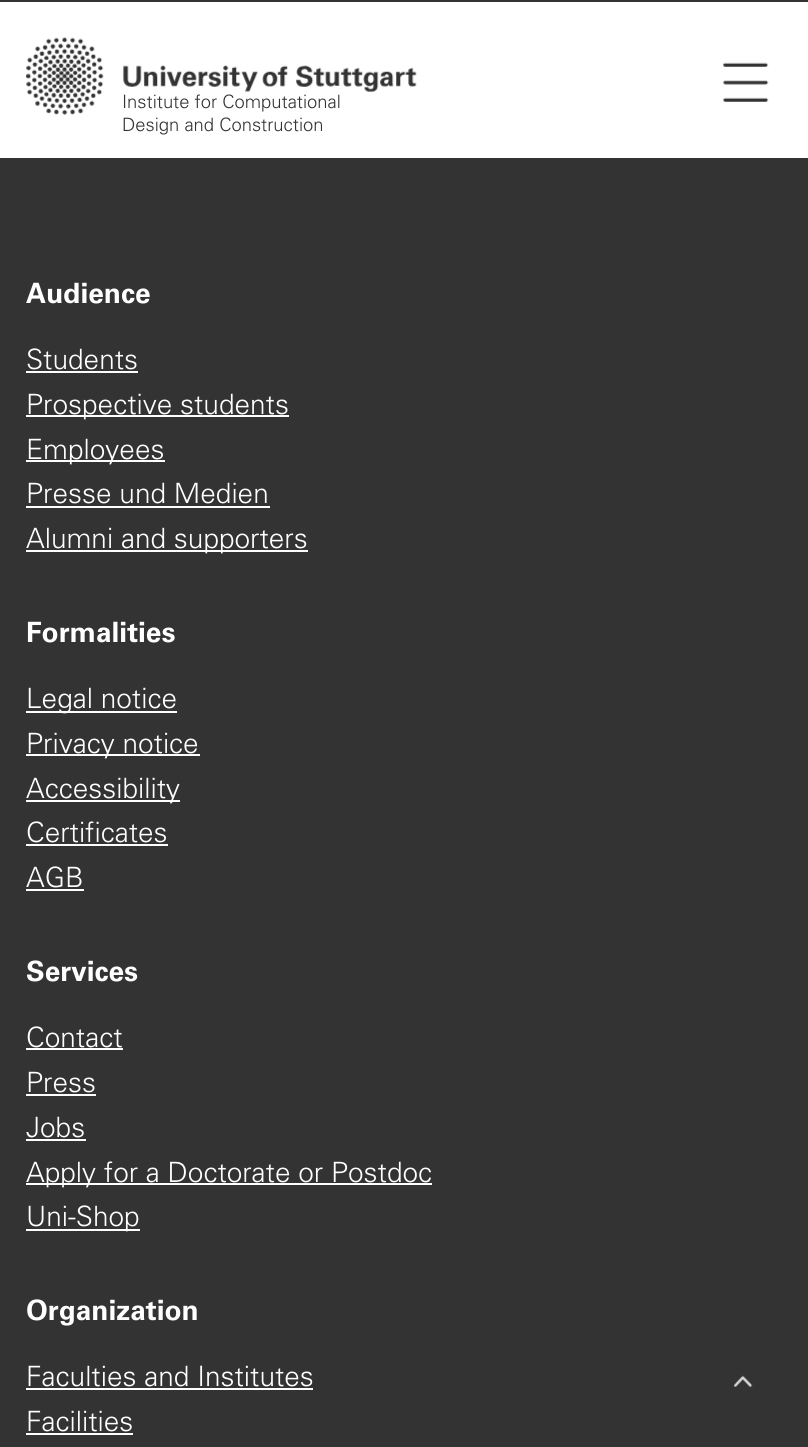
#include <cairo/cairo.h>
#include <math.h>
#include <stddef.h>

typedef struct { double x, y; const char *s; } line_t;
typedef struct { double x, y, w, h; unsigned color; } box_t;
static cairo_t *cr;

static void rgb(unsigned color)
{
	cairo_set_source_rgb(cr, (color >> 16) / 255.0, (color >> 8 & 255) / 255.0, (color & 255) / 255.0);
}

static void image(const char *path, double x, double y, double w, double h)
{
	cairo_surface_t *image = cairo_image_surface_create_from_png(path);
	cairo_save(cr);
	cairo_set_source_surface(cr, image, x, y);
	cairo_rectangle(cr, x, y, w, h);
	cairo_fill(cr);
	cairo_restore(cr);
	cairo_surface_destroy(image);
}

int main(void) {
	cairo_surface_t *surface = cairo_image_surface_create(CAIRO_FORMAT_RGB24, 808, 1447);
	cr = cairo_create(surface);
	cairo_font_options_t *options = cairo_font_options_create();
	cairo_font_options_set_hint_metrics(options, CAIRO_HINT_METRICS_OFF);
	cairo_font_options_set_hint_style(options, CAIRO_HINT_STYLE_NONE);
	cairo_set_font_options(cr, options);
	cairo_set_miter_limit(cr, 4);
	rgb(0x333333);
	cairo_paint(cr);
	rgb(0xffffff);
	cairo_rectangle(cr, 0, 2, 808, 156);
	cairo_fill(cr);
	image("img/1.png", 723, 62, 46, 40);
	image("img/2.png", 26, 37, 391, 78);
	{
		static const box_t items[] = {
			{26, 371, 112, 2, 0xffffff},
			{26, 415, 263, 2, 0xffffff},
			{26, 460, 139, 2, 0xffffff},
			{26, 506, 244, 2, 0xffffff},
			{26, 550, 282, 2, 0xffffff},
			{26, 711, 151, 2, 0xffffff},
			{26, 754, 174, 2, 0xffffff},
			{26, 800, 154, 2, 0xffffff},
			{26, 844, 142, 2, 0xffffff},
			{26, 889, 58, 2, 0xffffff},
			{26, 1048, 97, 2, 0xffffff},
			{26, 1094, 70, 2, 0xffffff},
			{26, 1139, 60, 2, 0xffffff},
			{26, 1183, 406, 2, 0xffffff},
			{26, 1229, 114, 2, 0xffffff},
			{26, 1388, 287, 2, 0xffffff},
			{26, 1433, 107, 2, 0xffffff},
		};
		for (size_t i = 0; i < sizeof items / sizeof *items; i++) {
			rgb(items[i].color);
			cairo_rectangle(cr, items[i].x, items[i].y, items[i].w, items[i].h);
			cairo_fill(cr);
		}
	}
	image("img/3.png", 734, 1375, 19, 12);
	cairo_select_font_face(cr, "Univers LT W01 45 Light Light", CAIRO_FONT_SLANT_NORMAL, CAIRO_FONT_WEIGHT_NORMAL);
	cairo_set_font_size(cr, 18.4);
	rgb(0x333333);
	cairo_move_to(cr, 122, 108);
	cairo_show_text(cr, "Institute for Computational");
	cairo_move_to(cr, 122, 131);
	cairo_show_text(cr, "Design and Construction");
	cairo_select_font_face(cr, "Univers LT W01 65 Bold", CAIRO_FONT_SLANT_NORMAL, CAIRO_FONT_WEIGHT_BOLD);
	cairo_set_font_size(cr, 28);
	rgb(0xffffff);
	cairo_move_to(cr, 26, 303);
	cairo_show_text(cr, "Audience");
	cairo_select_font_face(cr, "Univers LT W01 45 Light Light", CAIRO_FONT_SLANT_NORMAL, CAIRO_FONT_WEIGHT_NORMAL);
	{
		static const line_t items[] = {
			{26, 369, "Students"},
			{26, 414, "Prospective students"},
			{26, 459, "Employees"},
			{26, 503, "Presse und Medien"},
			{26, 548, "Alumni and supporters"},
		};
		for (size_t i = 0; i < sizeof items / sizeof *items; i++) {
			cairo_move_to(cr, items[i].x, items[i].y);
			cairo_show_text(cr, items[i].s);
		}
	}
	cairo_select_font_face(cr, "Univers LT W01 65 Bold", CAIRO_FONT_SLANT_NORMAL, CAIRO_FONT_WEIGHT_BOLD);
	cairo_move_to(cr, 26, 642);
	cairo_show_text(cr, "Formalities");
	cairo_select_font_face(cr, "Univers LT W01 45 Light Light", CAIRO_FONT_SLANT_NORMAL, CAIRO_FONT_WEIGHT_NORMAL);
	{
		static const line_t items[] = {
			{26, 708, "Legal notice"},
			{26, 753, "Privacy notice"},
			{26, 798, "Accessibility"},
			{26, 842, "Certificates"},
			{26, 887, "AGB"},
		};
		for (size_t i = 0; i < sizeof items / sizeof *items; i++) {
			cairo_move_to(cr, items[i].x, items[i].y);
			cairo_show_text(cr, items[i].s);
		}
	}
	cairo_select_font_face(cr, "Univers LT W01 65 Bold", CAIRO_FONT_SLANT_NORMAL, CAIRO_FONT_WEIGHT_BOLD);
	cairo_move_to(cr, 26, 981);
	cairo_show_text(cr, "Services");
	cairo_select_font_face(cr, "Univers LT W01 45 Light Light", CAIRO_FONT_SLANT_NORMAL, CAIRO_FONT_WEIGHT_NORMAL);
	{
		static const line_t items[] = {
			{26, 1047, "Contact"},
			{26, 1092, "Press"},
			{26, 1137, "Jobs"},
			{26, 1182, "Apply for a Doctorate or Postdoc"},
			{26, 1226, "Uni-Shop"},
		};
		for (size_t i = 0; i < sizeof items / sizeof *items; i++) {
			cairo_move_to(cr, items[i].x, items[i].y);
			cairo_show_text(cr, items[i].s);
		}
	}
	cairo_select_font_face(cr, "Univers LT W01 65 Bold", CAIRO_FONT_SLANT_NORMAL, CAIRO_FONT_WEIGHT_BOLD);
	cairo_move_to(cr, 26, 1320);
	cairo_show_text(cr, "Organization");
	cairo_select_font_face(cr, "Univers LT W01 45 Light Light", CAIRO_FONT_SLANT_NORMAL, CAIRO_FONT_WEIGHT_NORMAL);
	cairo_move_to(cr, 26, 1386);
	cairo_show_text(cr, "Faculties and Institutes");
	cairo_move_to(cr, 26, 1431);
	cairo_show_text(cr, "Facilities");
	cairo_surface_write_to_png(surface, "page.png");
	cairo_font_options_destroy(options);
	cairo_destroy(cr);
	cairo_surface_destroy(surface);
	return 0;
}
